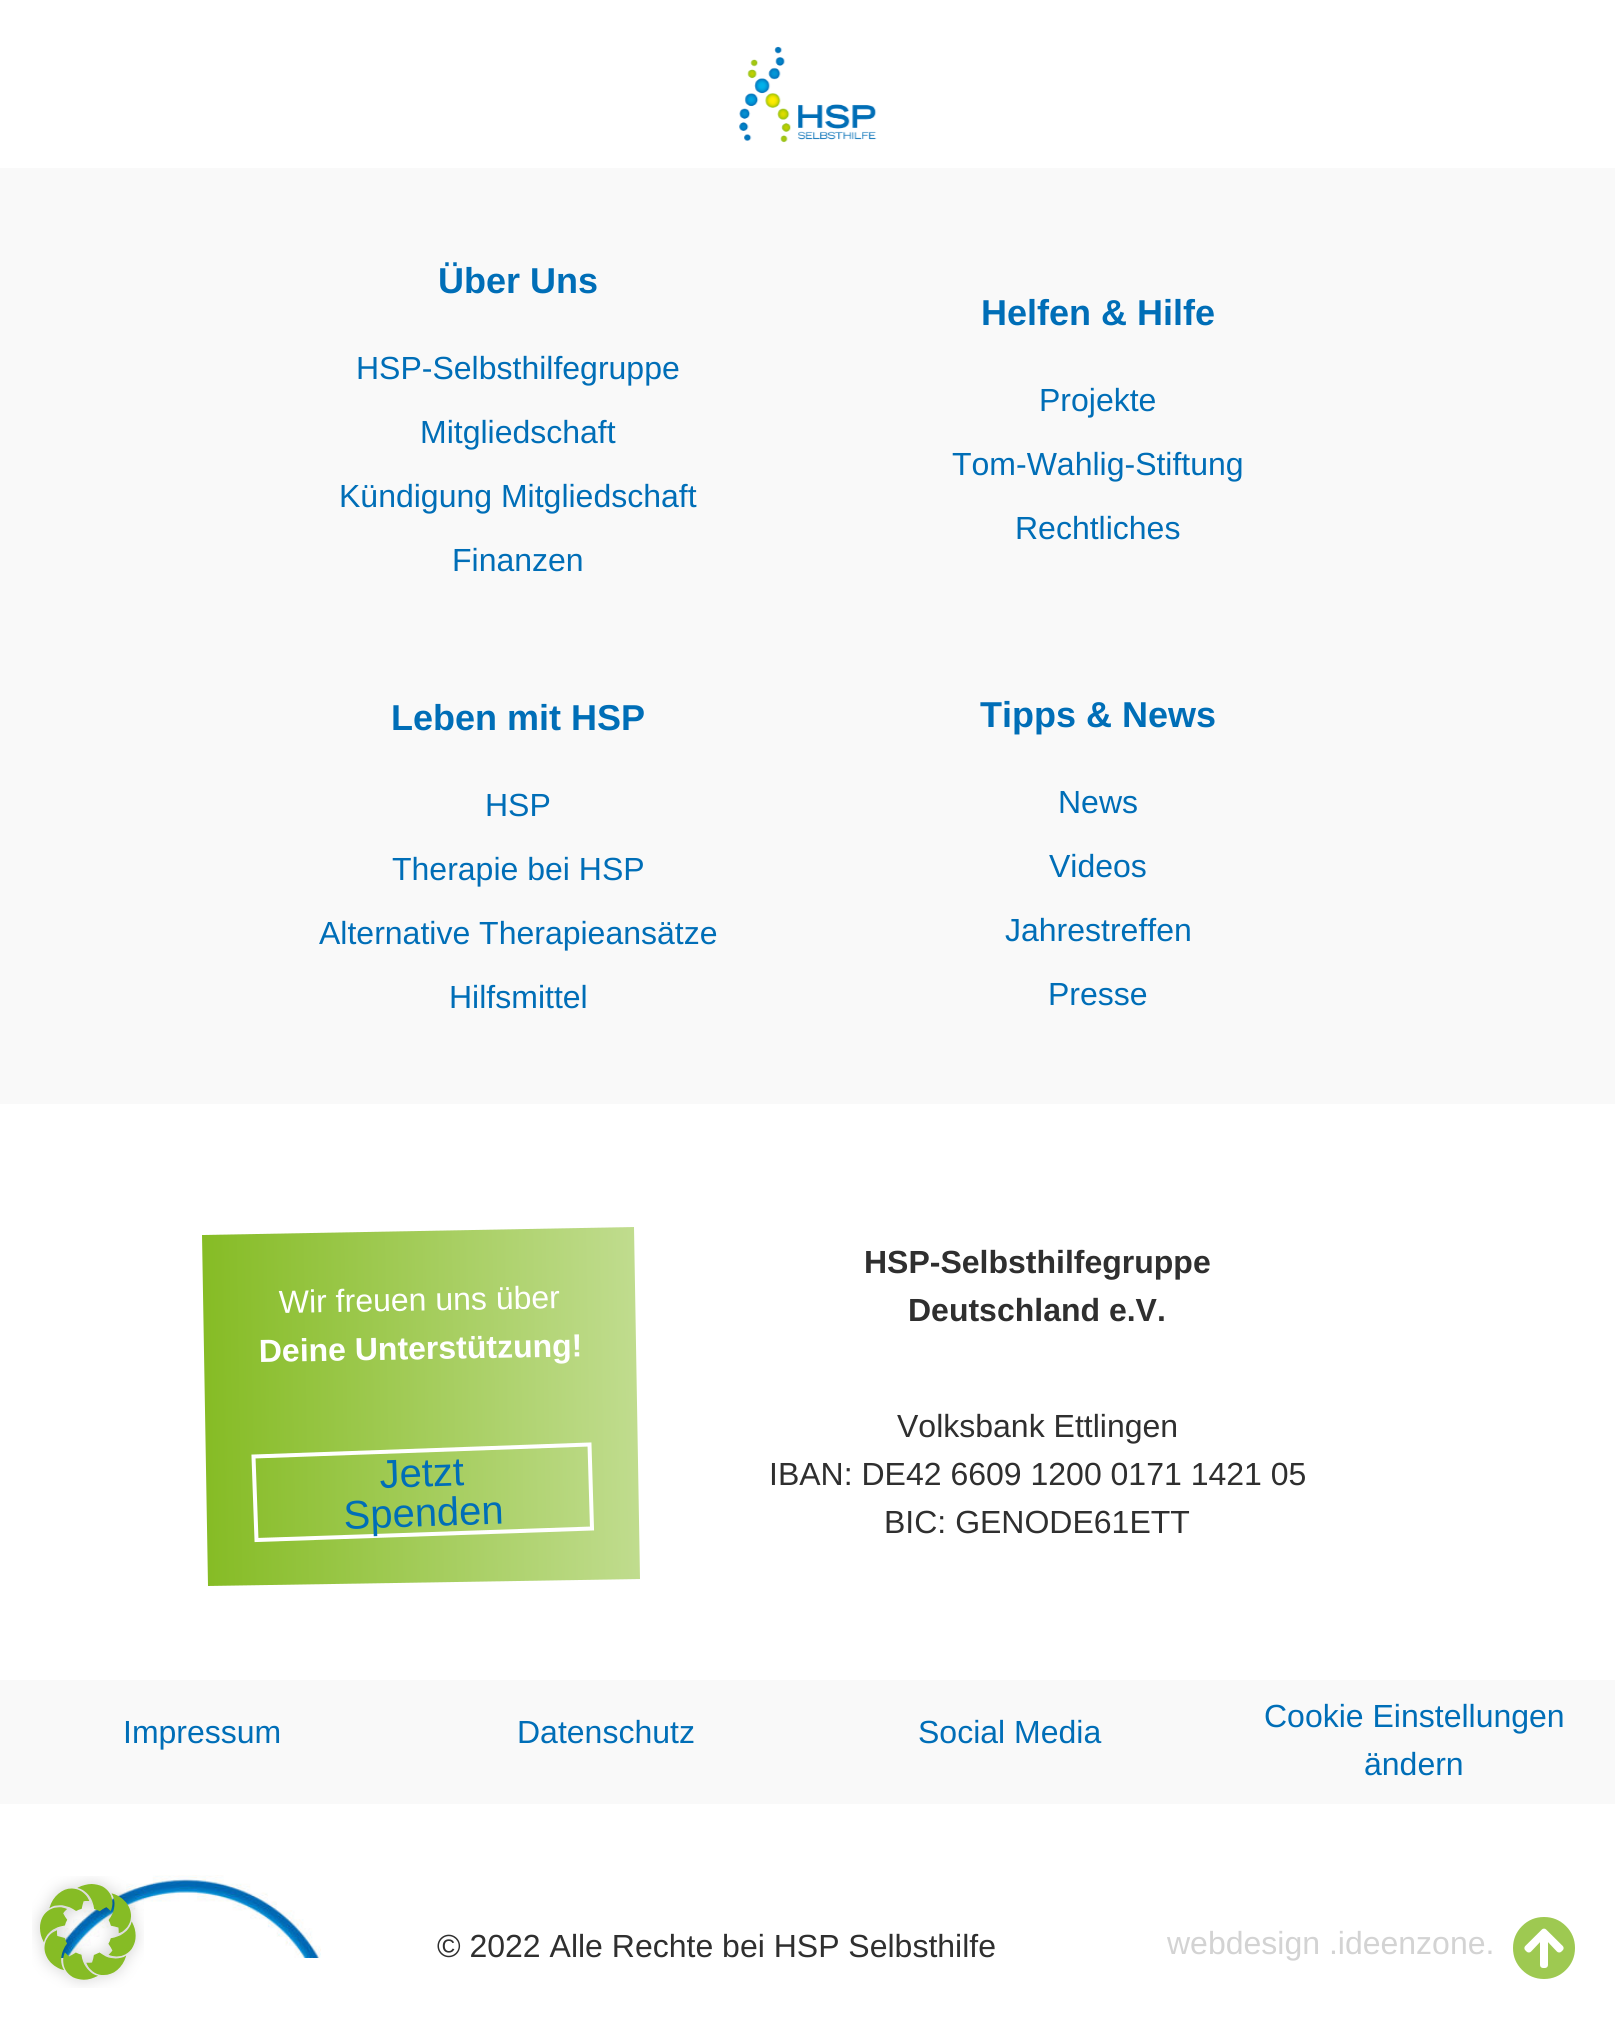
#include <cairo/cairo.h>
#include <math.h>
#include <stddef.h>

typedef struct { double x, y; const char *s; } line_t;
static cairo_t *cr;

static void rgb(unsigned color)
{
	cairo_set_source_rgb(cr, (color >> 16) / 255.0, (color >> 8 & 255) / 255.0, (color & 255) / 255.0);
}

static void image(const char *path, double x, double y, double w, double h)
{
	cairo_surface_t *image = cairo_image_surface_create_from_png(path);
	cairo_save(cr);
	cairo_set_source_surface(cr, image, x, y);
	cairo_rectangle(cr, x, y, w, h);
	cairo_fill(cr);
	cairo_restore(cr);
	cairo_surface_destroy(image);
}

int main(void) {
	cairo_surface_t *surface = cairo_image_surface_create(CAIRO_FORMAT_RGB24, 1615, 2019);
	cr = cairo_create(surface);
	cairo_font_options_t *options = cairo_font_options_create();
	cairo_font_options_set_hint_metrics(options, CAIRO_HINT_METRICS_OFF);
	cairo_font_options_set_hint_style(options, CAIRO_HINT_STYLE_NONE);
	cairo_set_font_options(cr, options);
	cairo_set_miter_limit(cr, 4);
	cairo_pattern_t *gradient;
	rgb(0xffffff);
	cairo_paint(cr);
	image("img/1.png", 739, 46, 138, 97);
	image("img/3.png", 47, 1875, 274, 83);
	image("img/2.png", 32, 1876, 112, 112);
	rgb(0xf9f9f9);
	cairo_rectangle(cr, 0, 168, 1615, 936);
	cairo_fill(cr);
	gradient = cairo_pattern_create_linear(205, 1410, 637, 1403);
	cairo_pattern_add_color_stop_rgba(gradient, 0, 0.525, 0.737, 0.145, 1);
	cairo_pattern_add_color_stop_rgba(gradient, 1, 0.753, 0.863, 0.557, 1);
	cairo_set_source(cr, gradient);
	cairo_pattern_destroy(gradient);
	cairo_new_path(cr);
	cairo_move_to(cr, 202, 1235);
	cairo_line_to(cr, 634, 1227);
	cairo_line_to(cr, 640, 1579);
	cairo_line_to(cr, 208, 1586);
	cairo_close_path(cr);
	cairo_fill(cr);
	cairo_new_path(cr);
	cairo_move_to(cr, 253.5, 1456.5);
	cairo_line_to(cr, 589.5, 1444.5);
	cairo_line_to(cr, 592, 1528.5);
	cairo_line_to(cr, 256.5, 1540);
	cairo_close_path(cr);
	rgb(0xffffff);
	cairo_set_line_width(cr, 4);
	cairo_stroke(cr);
	rgb(0xf9f9f9);
	cairo_rectangle(cr, 0, 1680, 1615, 124);
	cairo_fill(cr);
	image("img/4.png", 1513, 1917, 62, 62);
	cairo_select_font_face(cr, "Liberation Sans", CAIRO_FONT_SLANT_NORMAL, CAIRO_FONT_WEIGHT_BOLD);
	cairo_set_font_size(cr, 36);
	rgb(0x006eb7);
	cairo_move_to(cr, 438, 293);
	cairo_show_text(cr, "Über Uns");
	cairo_select_font_face(cr, "Liberation Sans", CAIRO_FONT_SLANT_NORMAL, CAIRO_FONT_WEIGHT_NORMAL);
	cairo_set_font_size(cr, 32);
	{
		static const line_t items[] = {
			{356, 379, "HSP-Selbsthilfegruppe"},
			{420, 443, "Mitgliedschaft"},
			{339, 507, "Kündigung Mitgliedschaft"},
			{452, 571, "Finanzen"},
		};
		for (size_t i = 0; i < sizeof items / sizeof *items; i++) {
			cairo_move_to(cr, items[i].x, items[i].y);
			cairo_show_text(cr, items[i].s);
		}
	}
	cairo_select_font_face(cr, "Liberation Sans", CAIRO_FONT_SLANT_NORMAL, CAIRO_FONT_WEIGHT_BOLD);
	cairo_set_font_size(cr, 36);
	cairo_move_to(cr, 981, 325);
	cairo_show_text(cr, "Helfen & Hilfe");
	cairo_select_font_face(cr, "Liberation Sans", CAIRO_FONT_SLANT_NORMAL, CAIRO_FONT_WEIGHT_NORMAL);
	cairo_set_font_size(cr, 32);
	{
		static const line_t items[] = {
			{1039, 411, "Projekte"},
			{952, 475, "Tom-Wahlig-Stiftung"},
			{1015, 539, "Rechtliches"},
		};
		for (size_t i = 0; i < sizeof items / sizeof *items; i++) {
			cairo_move_to(cr, items[i].x, items[i].y);
			cairo_show_text(cr, items[i].s);
		}
	}
	cairo_select_font_face(cr, "Liberation Sans", CAIRO_FONT_SLANT_NORMAL, CAIRO_FONT_WEIGHT_BOLD);
	cairo_set_font_size(cr, 36);
	cairo_move_to(cr, 391, 730);
	cairo_show_text(cr, "Leben mit HSP");
	cairo_select_font_face(cr, "Liberation Sans", CAIRO_FONT_SLANT_NORMAL, CAIRO_FONT_WEIGHT_NORMAL);
	cairo_set_font_size(cr, 32);
	{
		static const line_t items[] = {
			{485, 816, "HSP"},
			{392, 880, "Therapie bei HSP"},
			{319, 944, "Alternative Therapieansätze"},
			{449, 1008, "Hilfsmittel"},
		};
		for (size_t i = 0; i < sizeof items / sizeof *items; i++) {
			cairo_move_to(cr, items[i].x, items[i].y);
			cairo_show_text(cr, items[i].s);
		}
	}
	cairo_select_font_face(cr, "Liberation Sans", CAIRO_FONT_SLANT_NORMAL, CAIRO_FONT_WEIGHT_BOLD);
	cairo_set_font_size(cr, 36);
	cairo_move_to(cr, 980, 727);
	cairo_show_text(cr, "Tipps & News");
	cairo_select_font_face(cr, "Liberation Sans", CAIRO_FONT_SLANT_NORMAL, CAIRO_FONT_WEIGHT_NORMAL);
	cairo_set_font_size(cr, 32);
	{
		static const line_t items[] = {
			{1058, 813, "News"},
			{1049, 877, "Videos"},
			{1005, 941, "Jahrestreffen"},
			{1048, 1005, "Presse"},
		};
		for (size_t i = 0; i < sizeof items / sizeof *items; i++) {
			cairo_move_to(cr, items[i].x, items[i].y);
			cairo_show_text(cr, items[i].s);
		}
	}
	rgb(0xffffff);
	cairo_save(cr);
	cairo_translate(cr, 279, 1313);
	cairo_rotate(cr, -1 * M_PI / 180);
	cairo_move_to(cr, 0, 0);
	cairo_show_text(cr, "Wir freuen uns über");
	cairo_restore(cr);
	cairo_select_font_face(cr, "Liberation Sans", CAIRO_FONT_SLANT_NORMAL, CAIRO_FONT_WEIGHT_BOLD);
	cairo_save(cr);
	cairo_translate(cr, 259, 1362);
	cairo_rotate(cr, -1 * M_PI / 180);
	cairo_move_to(cr, 0, 0);
	cairo_show_text(cr, "Deine Unterstützung!");
	cairo_restore(cr);
	cairo_select_font_face(cr, "Liberation Sans", CAIRO_FONT_SLANT_NORMAL, CAIRO_FONT_WEIGHT_NORMAL);
	cairo_set_font_size(cr, 40);
	rgb(0x006eb7);
	cairo_save(cr);
	cairo_translate(cr, 380, 1488);
	cairo_rotate(cr, -2 * M_PI / 180);
	cairo_move_to(cr, 0, 0);
	cairo_show_text(cr, "Jetzt");
	cairo_restore(cr);
	cairo_save(cr);
	cairo_translate(cr, 344, 1529);
	cairo_rotate(cr, -2 * M_PI / 180);
	cairo_move_to(cr, 0, 0);
	cairo_show_text(cr, "Spenden");
	cairo_restore(cr);
	cairo_select_font_face(cr, "Liberation Sans", CAIRO_FONT_SLANT_NORMAL, CAIRO_FONT_WEIGHT_BOLD);
	cairo_set_font_size(cr, 32);
	rgb(0x2f2f2f);
	cairo_move_to(cr, 864, 1273);
	cairo_show_text(cr, "HSP-Selbsthilfegruppe");
	cairo_move_to(cr, 908, 1321);
	cairo_show_text(cr, "Deutschland e.V.");
	cairo_select_font_face(cr, "Liberation Sans", CAIRO_FONT_SLANT_NORMAL, CAIRO_FONT_WEIGHT_NORMAL);
	{
		static const line_t items[] = {
			{897, 1437, "Volksbank Ettlingen"},
			{769, 1485, "IBAN: DE42 6609 1200 0171 1421 05"},
			{884, 1533, "BIC: GENODE61ETT"},
		};
		for (size_t i = 0; i < sizeof items / sizeof *items; i++) {
			cairo_move_to(cr, items[i].x, items[i].y);
			cairo_show_text(cr, items[i].s);
		}
	}
	rgb(0x006eb7);
	{
		static const line_t items[] = {
			{123, 1743, "Impressum"},
			{517, 1743, "Datenschutz"},
			{918, 1743, "Social Media"},
			{1264, 1727, "Cookie Einstellungen"},
			{1364, 1775, "ändern"},
		};
		for (size_t i = 0; i < sizeof items / sizeof *items; i++) {
			cairo_move_to(cr, items[i].x, items[i].y);
			cairo_show_text(cr, items[i].s);
		}
	}
	rgb(0x2f2f2f);
	cairo_move_to(cr, 437, 1957);
	cairo_show_text(cr, "© 2022 Alle Rechte bei HSP Selbsthilfe");
	rgb(0xd3d3d3);
	cairo_move_to(cr, 1167, 1954);
	cairo_show_text(cr, "webdesign .ideenzone.");
	cairo_surface_write_to_png(surface, "page.png");
	cairo_font_options_destroy(options);
	cairo_destroy(cr);
	cairo_surface_destroy(surface);
	return 0;
}
